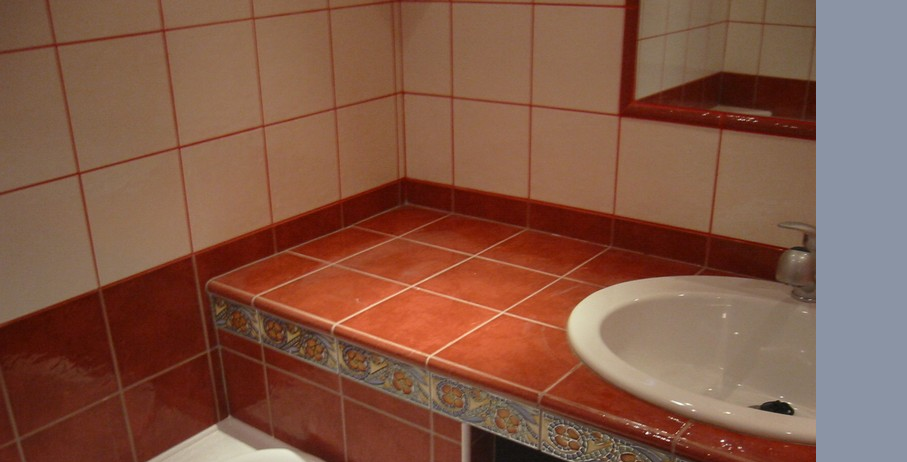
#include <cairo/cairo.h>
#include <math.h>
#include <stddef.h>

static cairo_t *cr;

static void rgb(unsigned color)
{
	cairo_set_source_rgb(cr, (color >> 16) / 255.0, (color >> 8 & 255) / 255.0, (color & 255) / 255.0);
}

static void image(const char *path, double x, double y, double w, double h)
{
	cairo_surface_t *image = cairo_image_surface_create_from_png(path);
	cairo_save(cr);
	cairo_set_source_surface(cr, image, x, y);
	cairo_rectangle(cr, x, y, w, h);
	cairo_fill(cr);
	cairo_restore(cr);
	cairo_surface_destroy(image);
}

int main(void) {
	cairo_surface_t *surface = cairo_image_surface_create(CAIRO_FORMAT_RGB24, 907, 462);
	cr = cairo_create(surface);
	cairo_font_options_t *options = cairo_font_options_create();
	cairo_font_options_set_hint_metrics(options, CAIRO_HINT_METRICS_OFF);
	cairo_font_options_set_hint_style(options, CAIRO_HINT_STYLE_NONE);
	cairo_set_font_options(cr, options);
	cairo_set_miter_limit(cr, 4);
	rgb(0x8b94a5);
	cairo_paint(cr);
	image("img/1.png", 0, 0, 816, 462);
	cairo_surface_write_to_png(surface, "page.png");
	cairo_font_options_destroy(options);
	cairo_destroy(cr);
	cairo_surface_destroy(surface);
	return 0;
}
